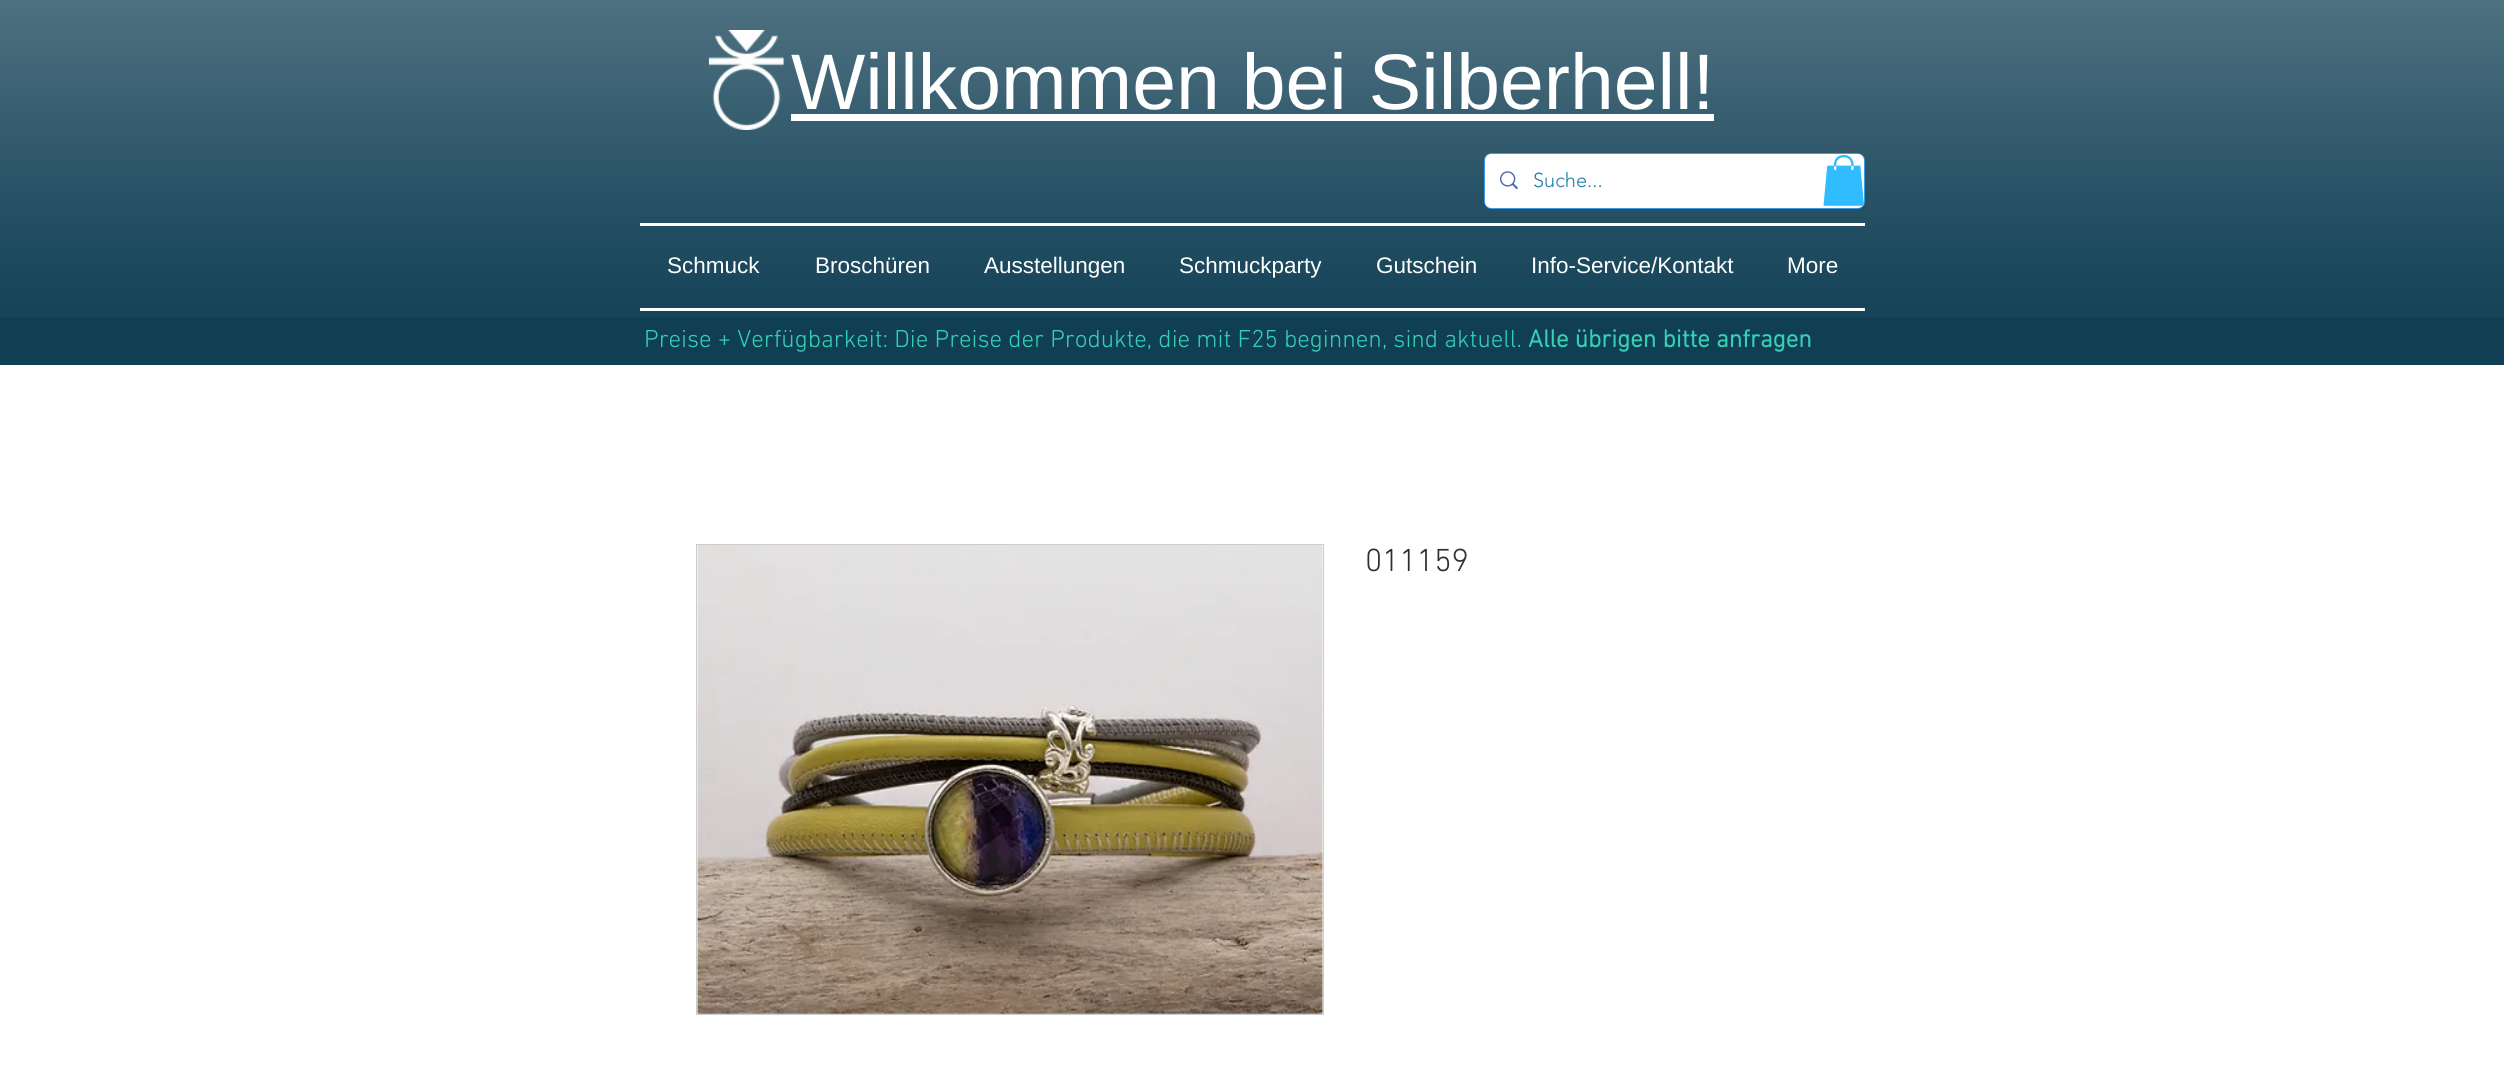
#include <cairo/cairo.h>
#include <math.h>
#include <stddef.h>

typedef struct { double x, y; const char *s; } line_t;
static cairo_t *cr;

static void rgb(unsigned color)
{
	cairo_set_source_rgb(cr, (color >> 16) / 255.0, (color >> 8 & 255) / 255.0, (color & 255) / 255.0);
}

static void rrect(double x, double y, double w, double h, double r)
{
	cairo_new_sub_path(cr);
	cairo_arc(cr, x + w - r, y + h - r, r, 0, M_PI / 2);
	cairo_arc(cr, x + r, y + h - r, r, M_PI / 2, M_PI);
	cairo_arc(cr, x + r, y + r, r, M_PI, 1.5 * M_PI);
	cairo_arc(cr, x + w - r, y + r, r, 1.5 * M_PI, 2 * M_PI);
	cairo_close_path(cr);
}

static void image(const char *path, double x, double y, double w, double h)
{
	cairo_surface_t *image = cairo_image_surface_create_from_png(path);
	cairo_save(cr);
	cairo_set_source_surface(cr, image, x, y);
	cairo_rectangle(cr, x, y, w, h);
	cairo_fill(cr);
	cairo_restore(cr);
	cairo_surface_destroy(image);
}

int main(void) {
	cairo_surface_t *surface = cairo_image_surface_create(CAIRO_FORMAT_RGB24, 2504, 1091);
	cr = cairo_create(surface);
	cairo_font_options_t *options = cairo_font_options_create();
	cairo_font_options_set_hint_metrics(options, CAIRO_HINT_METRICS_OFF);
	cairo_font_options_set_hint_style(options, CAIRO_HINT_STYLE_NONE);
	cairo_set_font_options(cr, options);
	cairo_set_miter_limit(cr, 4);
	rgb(0xffffff);
	cairo_paint(cr);
	rgb(0x103f54);
	cairo_rectangle(cr, 0, 0, 2504, 365);
	cairo_fill(cr);
	image("img/1.png", 0, 0, 2504, 317);
	image("img/2.png", 708, 30, 76, 100);
	rgb(0xffffff);
	cairo_rectangle(cr, 791, 114, 923, 7);
	cairo_fill(cr);
	rrect(1484.5, 153.5, 380, 55, 7.5);
	rgb(0x3d9be9);
	cairo_set_line_width(cr, 1);
	cairo_stroke(cr);
	rgb(0xffffff);
	rrect(1485, 154, 379, 54, 6);
	cairo_fill(cr);
	image("img/3.png", 1500, 171, 18, 19);
	image("img/4.png", 1823, 155, 41, 51);
	cairo_rectangle(cr, 640, 223, 1225, 3);
	cairo_fill(cr);
	cairo_rectangle(cr, 640, 308, 1225, 3);
	cairo_fill(cr);
	cairo_rectangle(cr, 696.5, 544.5, 627, 470);
	rgb(0xcccccc);
	cairo_stroke(cr);
	image("img/5.png", 697, 545, 626, 469);
	cairo_select_font_face(cr, "Liberation Sans", CAIRO_FONT_SLANT_NORMAL, CAIRO_FONT_WEIGHT_NORMAL);
	cairo_set_font_size(cr, 78.75);
	rgb(0xffffff);
	cairo_move_to(cr, 791, 109);
	cairo_show_text(cr, "Willkommen bei Silberhell!");
	cairo_select_font_face(cr, "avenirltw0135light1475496 Light", CAIRO_FONT_SLANT_NORMAL, CAIRO_FONT_WEIGHT_NORMAL);
	cairo_set_font_size(cr, 20);
	rgb(0x207ea9);
	cairo_move_to(cr, 1533, 187);
	cairo_show_text(cr, "Suche...");
	cairo_select_font_face(cr, "Liberation Sans", CAIRO_FONT_SLANT_NORMAL, CAIRO_FONT_WEIGHT_NORMAL);
	cairo_set_font_size(cr, 22.5);
	rgb(0xffffff);
	{
		static const line_t items[] = {
			{667, 273, "Schmuck"},
			{815, 273, "Broschüren"},
			{984, 273, "Ausstellungen"},
			{1179, 273, "Schmuckparty"},
			{1376, 273, "Gutschein"},
			{1531, 273, "Info-Service/Kontakt"},
			{1787, 273, "More"},
		};
		for (size_t i = 0; i < sizeof items / sizeof *items; i++) {
			cairo_move_to(cr, items[i].x, items[i].y);
			cairo_show_text(cr, items[i].s);
		}
	}
	cairo_select_font_face(cr, "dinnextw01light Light", CAIRO_FONT_SLANT_NORMAL, CAIRO_FONT_WEIGHT_NORMAL);
	cairo_set_font_size(cr, 25);
	rgb(0x36d1b5);
	cairo_move_to(cr, 644, 347);
	cairo_show_text(cr, "Preise + Verfügbarkeit: Die Preise der Produkte, die mit F25 beginnen, sind aktuell.");
	cairo_select_font_face(cr, "dinnextw01light", CAIRO_FONT_SLANT_NORMAL, CAIRO_FONT_WEIGHT_BOLD);
	cairo_move_to(cr, 1528, 347);
	cairo_show_text(cr, "Alle übrigen bitte anfragen");
	cairo_select_font_face(cr, "dinnextw01light Light", CAIRO_FONT_SLANT_NORMAL, CAIRO_FONT_WEIGHT_NORMAL);
	cairo_set_font_size(cr, 32.5);
	rgb(0x2f2e2e);
	cairo_move_to(cr, 1365, 571);
	cairo_show_text(cr, "011159");
	cairo_surface_write_to_png(surface, "page.png");
	cairo_font_options_destroy(options);
	cairo_destroy(cr);
	cairo_surface_destroy(surface);
	return 0;
}
